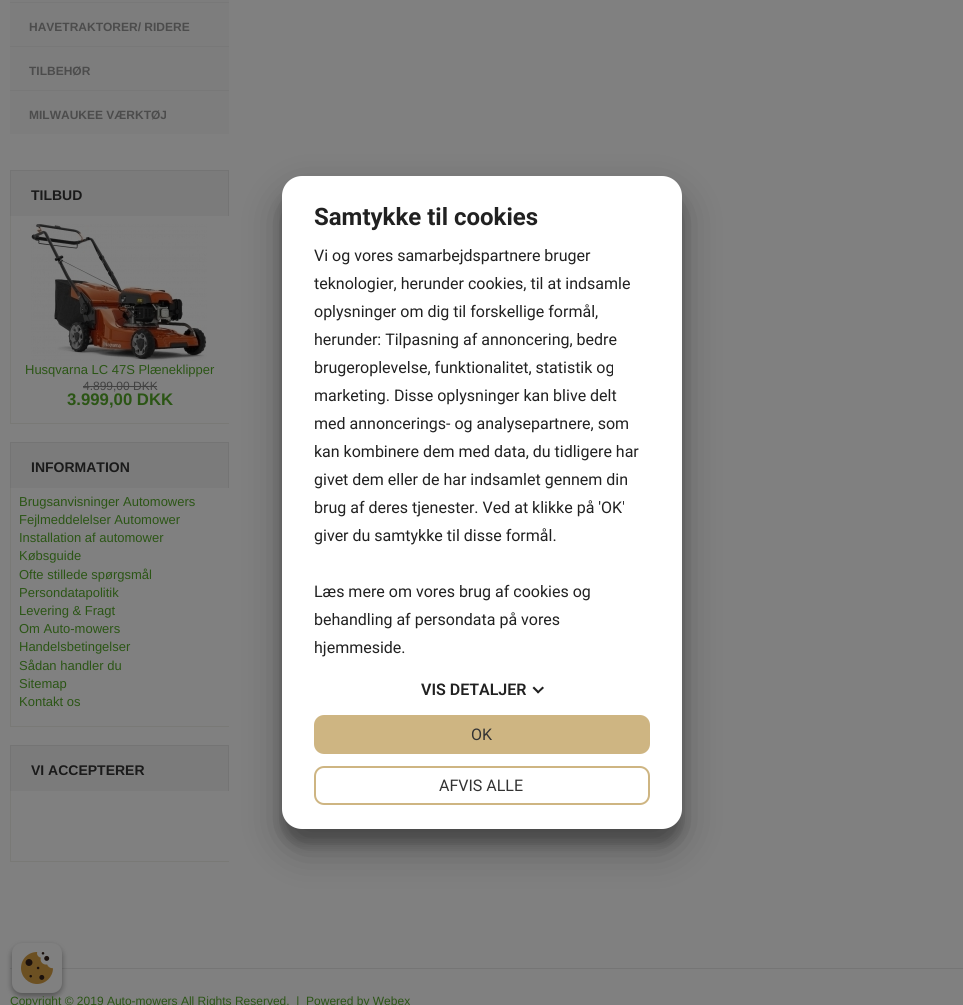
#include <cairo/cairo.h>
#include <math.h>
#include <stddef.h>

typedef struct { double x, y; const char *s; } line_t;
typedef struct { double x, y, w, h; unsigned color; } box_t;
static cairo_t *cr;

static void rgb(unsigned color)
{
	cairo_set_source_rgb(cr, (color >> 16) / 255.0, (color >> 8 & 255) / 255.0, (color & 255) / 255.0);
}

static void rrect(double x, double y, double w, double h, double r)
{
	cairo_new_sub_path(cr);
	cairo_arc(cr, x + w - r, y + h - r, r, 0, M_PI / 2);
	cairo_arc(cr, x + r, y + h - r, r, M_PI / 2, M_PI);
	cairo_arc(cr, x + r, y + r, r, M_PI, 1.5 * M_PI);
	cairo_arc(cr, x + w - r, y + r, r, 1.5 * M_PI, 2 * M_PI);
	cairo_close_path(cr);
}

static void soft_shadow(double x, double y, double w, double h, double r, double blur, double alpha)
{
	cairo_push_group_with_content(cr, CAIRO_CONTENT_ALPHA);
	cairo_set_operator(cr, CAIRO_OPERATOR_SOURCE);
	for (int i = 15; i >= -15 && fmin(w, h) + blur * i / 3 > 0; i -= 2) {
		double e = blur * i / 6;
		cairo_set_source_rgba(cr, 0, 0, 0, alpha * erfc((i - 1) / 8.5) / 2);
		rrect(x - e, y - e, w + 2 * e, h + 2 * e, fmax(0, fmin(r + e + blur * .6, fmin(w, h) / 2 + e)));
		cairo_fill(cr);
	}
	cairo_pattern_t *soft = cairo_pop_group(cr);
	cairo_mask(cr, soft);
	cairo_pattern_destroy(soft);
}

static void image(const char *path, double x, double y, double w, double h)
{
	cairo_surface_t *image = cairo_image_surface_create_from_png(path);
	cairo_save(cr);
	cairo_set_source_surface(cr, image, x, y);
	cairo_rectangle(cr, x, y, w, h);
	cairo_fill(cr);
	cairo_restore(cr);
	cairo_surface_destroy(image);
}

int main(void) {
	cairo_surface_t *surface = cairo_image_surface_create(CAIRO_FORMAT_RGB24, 963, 1005);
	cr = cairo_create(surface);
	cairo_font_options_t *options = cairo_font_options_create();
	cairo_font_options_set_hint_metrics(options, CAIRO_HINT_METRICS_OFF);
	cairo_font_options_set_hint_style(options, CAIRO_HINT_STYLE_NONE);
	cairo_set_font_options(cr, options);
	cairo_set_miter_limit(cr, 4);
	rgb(0x808080);
	cairo_paint(cr);
	{
		static const box_t items[] = {
			{10, 0, 219, 2, 0x7d7d7d},
			{10, 3, 219, 43, 0x7d7d7d},
			{10, 2, 219, 1, 0x787878},
			{10, 47, 219, 43, 0x7d7d7d},
			{10, 46, 219, 1, 0x787878},
			{10, 91, 219, 43, 0x7d7d7d},
			{10, 90, 219, 1, 0x787878},
			{11, 171, 217, 45, 0x7b7b7b},
			{10, 170, 219, 1, 0x747474},
			{228, 170, 1, 46, 0x747474},
			{10, 170, 1, 46, 0x747474},
			{10, 423, 219, 1, 0x797976},
			{10, 216, 1, 208, 0x797976},
		};
		for (size_t i = 0; i < sizeof items / sizeof *items; i++) {
			rgb(items[i].color);
			cairo_rectangle(cr, items[i].x, items[i].y, items[i].w, items[i].h);
			cairo_fill(cr);
		}
	}
	image("img/1.png", 31, 224, 176, 137);
	{
		static const box_t items[] = {
			{83, 386, 74, 1, 0x424242},
			{11, 443, 217, 45, 0x7b7b7b},
			{10, 442, 219, 1, 0x747474},
			{228, 442, 1, 46, 0x747474},
			{10, 442, 1, 46, 0x747474},
			{10, 726, 219, 1, 0x797976},
			{10, 488, 1, 239, 0x797976},
			{11, 746, 217, 45, 0x7b7b7b},
			{10, 745, 219, 1, 0x747474},
			{228, 745, 1, 46, 0x747474},
			{10, 745, 1, 46, 0x747474},
			{10, 861, 219, 1, 0x797976},
			{10, 791, 1, 71, 0x797976},
			{10, 968, 953, 1, 0x757575},
		};
		for (size_t i = 0; i < sizeof items / sizeof *items; i++) {
			rgb(items[i].color);
			cairo_rectangle(cr, items[i].x, items[i].y, items[i].w, items[i].h);
			cairo_fill(cr);
		}
	}
	rgb(0x000000);
	soft_shadow(282, 191, 400, 653, 20, 6, 0.22);
	soft_shadow(282, 195, 400, 653, 20, 19, 0.3);
	rgb(0xffffff);
	rrect(282, 176, 400, 653, 20);
	cairo_fill(cr);
	rgb(0x212121);
	cairo_new_path(cr);
	cairo_move_to(cr, 542.5, 686.5);
	cairo_line_to(cr, 544, 688);
	cairo_line_to(cr, 538, 693.5);
	cairo_line_to(cr, 537, 692);
	cairo_close_path(cr);
	cairo_fill(cr);
	cairo_new_path(cr);
	cairo_move_to(cr, 534, 686.5);
	cairo_line_to(cr, 539.5, 692);
	cairo_line_to(cr, 538, 693.5);
	cairo_line_to(cr, 532.5, 688);
	cairo_close_path(cr);
	cairo_fill(cr);
	rgb(0xceb582);
	rrect(315, 716, 334, 37, 9);
	cairo_fill_preserve(cr);
	cairo_stroke(cr);
	rrect(315, 767, 334, 37, 9);
	cairo_stroke(cr);
	rgb(0x000000);
	soft_shadow(12, 946, 50, 50, 10, 3, 0.23);
	soft_shadow(12, 946, 50, 50, 10, 3, 0.16);
	rgb(0x808080);
	rrect(12, 943, 50, 50, 10);
	cairo_fill(cr);
	image("img/2.png", 21, 952, 32, 32);
	cairo_select_font_face(cr, "Liberation Sans", CAIRO_FONT_SLANT_NORMAL, CAIRO_FONT_WEIGHT_BOLD);
	cairo_set_font_size(cr, 12);
	rgb(0x4c4c4c);
	{
		static const line_t items[] = {
			{29, 31, "HAVETRAKTORER/ RIDERE"},
			{29, 75, "TILBEHØR"},
			{29, 119, "MILWAUKEE VÆRKTØJ"},
		};
		for (size_t i = 0; i < sizeof items / sizeof *items; i++) {
			cairo_move_to(cr, items[i].x, items[i].y);
			cairo_show_text(cr, items[i].s);
		}
	}
	cairo_set_font_size(cr, 14);
	rgb(0x1a1a1a);
	cairo_move_to(cr, 31, 200);
	cairo_show_text(cr, "TILBUD");
	cairo_select_font_face(cr, "Liberation Sans", CAIRO_FONT_SLANT_NORMAL, CAIRO_FONT_WEIGHT_NORMAL);
	cairo_set_font_size(cr, 13);
	rgb(0x2b5515);
	cairo_move_to(cr, 25, 374);
	cairo_show_text(cr, "Husqvarna LC 47S Plæneklipper");
	cairo_set_font_size(cr, 12);
	rgb(0x424242);
	cairo_move_to(cr, 83, 390);
	cairo_show_text(cr, "4.899,00 DKK");
	cairo_select_font_face(cr, "Liberation Sans", CAIRO_FONT_SLANT_NORMAL, CAIRO_FONT_WEIGHT_BOLD);
	cairo_set_font_size(cr, 16.75);
	rgb(0x2b5515);
	cairo_move_to(cr, 67, 405);
	cairo_show_text(cr, "3.999,00 DKK");
	cairo_set_font_size(cr, 14);
	rgb(0x1a1a1a);
	cairo_move_to(cr, 31, 472);
	cairo_show_text(cr, "INFORMATION");
	cairo_select_font_face(cr, "Liberation Sans", CAIRO_FONT_SLANT_NORMAL, CAIRO_FONT_WEIGHT_NORMAL);
	cairo_set_font_size(cr, 13);
	rgb(0x2b5515);
	{
		static const line_t items[] = {
			{19, 506, "Brugsanvisninger Automowers"},
			{19, 524, "Fejlmeddelelser Automower"},
			{19, 542, "Installation af automower"},
			{19, 560, "Købsguide"},
			{19, 579, "Ofte stillede spørgsmål"},
			{19, 597, "Persondatapolitik"},
			{19, 615, "Levering & Fragt"},
			{19, 633, "Om Auto-mowers"},
			{19, 651, "Handelsbetingelser"},
			{19, 670, "Sådan handler du"},
			{19, 688, "Sitemap"},
			{19, 706, "Kontakt os"},
		};
		for (size_t i = 0; i < sizeof items / sizeof *items; i++) {
			cairo_move_to(cr, items[i].x, items[i].y);
			cairo_show_text(cr, items[i].s);
		}
	}
	cairo_select_font_face(cr, "Liberation Sans", CAIRO_FONT_SLANT_NORMAL, CAIRO_FONT_WEIGHT_BOLD);
	cairo_set_font_size(cr, 14);
	rgb(0x1a1a1a);
	cairo_move_to(cr, 31, 775);
	cairo_show_text(cr, "VI ACCEPTERER");
	cairo_select_font_face(cr, "Liberation Sans", CAIRO_FONT_SLANT_NORMAL, CAIRO_FONT_WEIGHT_NORMAL);
	cairo_set_font_size(cr, 12);
	rgb(0x2b5515);
	cairo_move_to(cr, 10, 1005);
	cairo_show_text(cr, "Copyright © 2019 Auto-mowers All Rights Reserved.  |  Powered by Webex");
	cairo_select_font_face(cr, "Roboto", CAIRO_FONT_SLANT_NORMAL, CAIRO_FONT_WEIGHT_BOLD);
	cairo_set_font_size(cr, 24);
	rgb(0x212121);
	cairo_move_to(cr, 314, 225);
	cairo_show_text(cr, "Samtykke til cookies");
	cairo_select_font_face(cr, "Roboto", CAIRO_FONT_SLANT_NORMAL, CAIRO_FONT_WEIGHT_NORMAL);
	cairo_set_font_size(cr, 16);
	{
		static const line_t items[] = {
			{314, 261, "Vi og vores samarbejdspartnere bruger"},
			{314, 289, "teknologier, herunder cookies, til at indsamle"},
			{314, 317, "oplysninger om dig til forskellige formål,"},
			{314, 345, "herunder: Tilpasning af annoncering, bedre"},
			{314, 373, "brugeroplevelse, funktionalitet, statistik og"},
			{314, 401, "marketing. Disse oplysninger kan blive delt"},
			{314, 429, "med annoncerings- og analysepartnere, som"},
			{314, 457, "kan kombinere dem med data, du tidligere har"},
			{314, 485, "givet dem eller de har indsamlet gennem din"},
			{314, 513, "brug af deres tjenester. Ved at klikke på 'OK'"},
			{314, 541, "giver du samtykke til disse formål."},
			{314, 597, "Læs mere om vores brug af cookies og"},
			{314, 625, "behandling af persondata på vores"},
			{314, 653, "hjemmeside."},
		};
		for (size_t i = 0; i < sizeof items / sizeof *items; i++) {
			cairo_move_to(cr, items[i].x, items[i].y);
			cairo_show_text(cr, items[i].s);
		}
	}
	cairo_select_font_face(cr, "Roboto SemiBold", CAIRO_FONT_SLANT_NORMAL, CAIRO_FONT_WEIGHT_NORMAL);
	cairo_move_to(cr, 421, 695);
	cairo_show_text(cr, "VIS DETALJER");
	cairo_select_font_face(cr, "Roboto", CAIRO_FONT_SLANT_NORMAL, CAIRO_FONT_WEIGHT_NORMAL);
	rgb(0x333333);
	cairo_move_to(cr, 471, 740);
	cairo_show_text(cr, "OK");
	cairo_move_to(cr, 439, 791);
	cairo_show_text(cr, "AFVIS ALLE");
	cairo_surface_write_to_png(surface, "page.png");
	cairo_font_options_destroy(options);
	cairo_destroy(cr);
	cairo_surface_destroy(surface);
	return 0;
}
